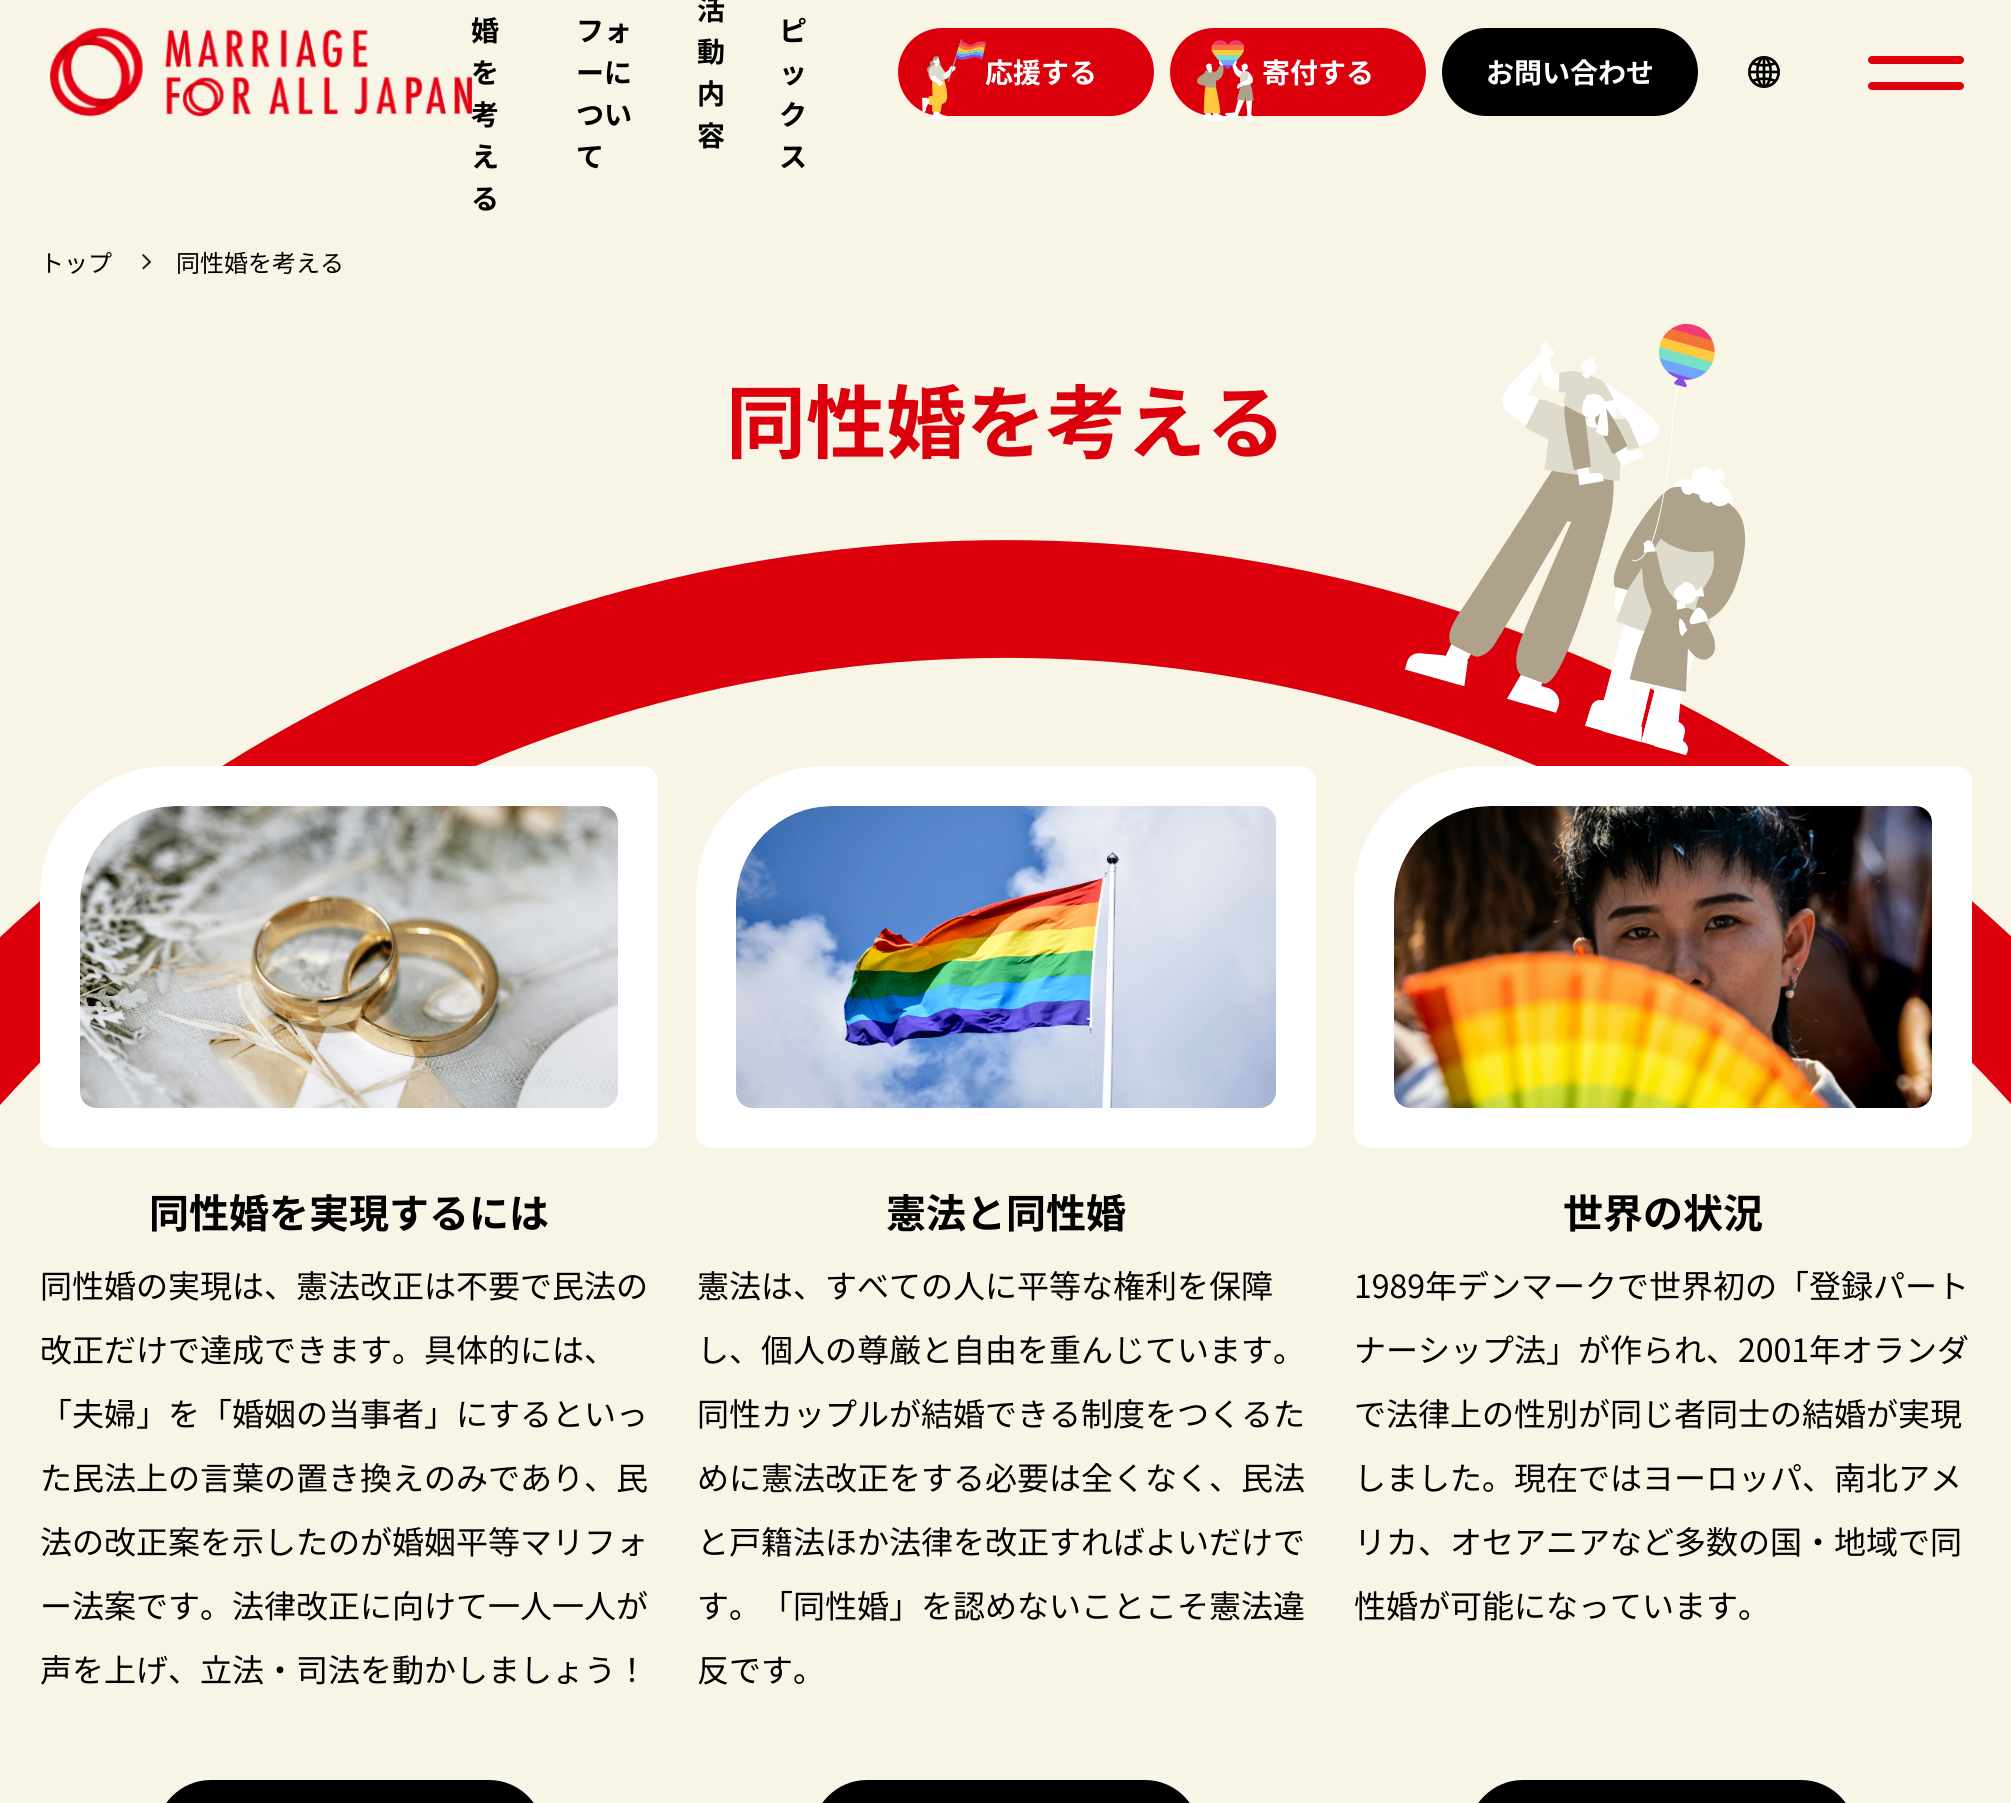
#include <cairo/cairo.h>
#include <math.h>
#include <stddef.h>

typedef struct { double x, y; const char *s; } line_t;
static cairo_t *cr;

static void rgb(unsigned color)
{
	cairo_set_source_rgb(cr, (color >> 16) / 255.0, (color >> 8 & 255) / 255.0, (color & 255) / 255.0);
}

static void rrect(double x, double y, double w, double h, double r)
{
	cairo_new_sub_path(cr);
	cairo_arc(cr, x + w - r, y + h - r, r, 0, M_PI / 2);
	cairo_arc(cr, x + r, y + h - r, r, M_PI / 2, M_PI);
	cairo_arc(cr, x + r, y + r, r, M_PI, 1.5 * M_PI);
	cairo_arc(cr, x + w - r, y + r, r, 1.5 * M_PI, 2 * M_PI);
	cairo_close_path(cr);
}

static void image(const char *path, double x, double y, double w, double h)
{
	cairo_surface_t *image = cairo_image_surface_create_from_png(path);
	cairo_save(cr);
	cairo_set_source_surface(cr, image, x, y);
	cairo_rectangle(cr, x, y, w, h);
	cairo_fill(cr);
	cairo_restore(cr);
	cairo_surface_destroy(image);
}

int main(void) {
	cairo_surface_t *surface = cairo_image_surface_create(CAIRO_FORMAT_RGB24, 2011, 1803);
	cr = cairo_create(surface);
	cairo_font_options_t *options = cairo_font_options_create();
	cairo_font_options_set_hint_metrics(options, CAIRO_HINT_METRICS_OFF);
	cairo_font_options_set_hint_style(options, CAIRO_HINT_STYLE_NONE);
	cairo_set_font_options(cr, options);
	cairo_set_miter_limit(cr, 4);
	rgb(0xf8f5e7);
	cairo_paint(cr);
	rgb(0xdc000c);
	rrect(901, 31, 250, 82, 41);
	cairo_fill_preserve(cr);
	cairo_set_line_width(cr, 6);
	cairo_stroke(cr);
	rrect(1173, 31, 250, 82, 41);
	cairo_fill_preserve(cr);
	cairo_stroke(cr);
	image("img/3.png", 1197, 40, 57, 82);
	rgb(0x000000);
	rrect(1442, 28, 256, 88, 44);
	cairo_fill(cr);
	image("img/4.png", 1748, 56, 32, 32);
	rgb(0xdc000c);
	rrect(1868, 56, 96, 8, 4);
	cairo_fill(cr);
	rrect(1868, 82, 96, 8, 4);
	cairo_fill(cr);
	image("img/5.png", 142, 254, 10, 16);
	cairo_arc(cr, 1006, 2013, 1414, 0, 2 * M_PI);
	cairo_set_line_width(cr, 117.8);
	cairo_stroke(cr);
	image("img/6.png", 1405, 324, 341, 432);
	rgb(0xffffff);
	cairo_new_path(cr);
	cairo_move_to(cr, 168, 766);
	cairo_line_to(cr, 642, 766);
	cairo_curve_to(cr, 651, 766, 658, 773, 658, 782);
	cairo_line_to(cr, 658, 1132);
	cairo_curve_to(cr, 658, 1141, 651, 1148, 642, 1148);
	cairo_line_to(cr, 56, 1148);
	cairo_curve_to(cr, 47, 1148, 40, 1141, 40, 1132);
	cairo_line_to(cr, 40, 894);
	cairo_curve_to(cr, 40, 823.5, 97.5, 766, 168, 766);
	cairo_close_path(cr);
	cairo_fill(cr);
	rgb(0xeeeeee);
	cairo_new_path(cr);
	cairo_move_to(cr, 176, 806);
	cairo_line_to(cr, 602, 806);
	cairo_curve_to(cr, 611, 806, 618, 813, 618, 822);
	cairo_line_to(cr, 618, 1092);
	cairo_curve_to(cr, 618, 1101, 611, 1108, 602, 1108);
	cairo_line_to(cr, 96, 1108);
	cairo_curve_to(cr, 87, 1108, 80, 1101, 80, 1092);
	cairo_line_to(cr, 80, 902);
	cairo_curve_to(cr, 80, 849, 123, 806, 176, 806);
	cairo_close_path(cr);
	cairo_fill(cr);
	image("img/7.png", 80, 806, 538, 302);
	rgb(0x000000);
	rrect(156, 1780, 388, 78, 55);
	cairo_fill(cr);
	rgb(0xffffff);
	cairo_new_path(cr);
	cairo_move_to(cr, 824, 766);
	cairo_line_to(cr, 1300, 766);
	cairo_curve_to(cr, 1309, 766, 1316, 773, 1316, 782);
	cairo_line_to(cr, 1316, 1132);
	cairo_curve_to(cr, 1316, 1141, 1309, 1148, 1300, 1148);
	cairo_line_to(cr, 712, 1148);
	cairo_curve_to(cr, 703, 1148, 696, 1141, 696, 1132);
	cairo_line_to(cr, 696, 894);
	cairo_curve_to(cr, 696, 823.5, 753.5, 766, 824, 766);
	cairo_close_path(cr);
	cairo_fill(cr);
	rgb(0xeeeeee);
	cairo_new_path(cr);
	cairo_move_to(cr, 832, 806);
	cairo_line_to(cr, 1260, 806);
	cairo_curve_to(cr, 1269, 806, 1276, 813, 1276, 822);
	cairo_line_to(cr, 1276, 1092);
	cairo_curve_to(cr, 1276, 1101, 1269, 1108, 1260, 1108);
	cairo_line_to(cr, 752, 1108);
	cairo_curve_to(cr, 743, 1108, 736, 1101, 736, 1092);
	cairo_line_to(cr, 736, 902);
	cairo_curve_to(cr, 736, 849, 779, 806, 832, 806);
	cairo_close_path(cr);
	cairo_fill(cr);
	image("img/8.png", 736, 806, 540, 302);
	rgb(0x000000);
	rrect(812, 1780, 388, 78, 55);
	cairo_fill(cr);
	rgb(0xffffff);
	cairo_new_path(cr);
	cairo_move_to(cr, 1482, 766);
	cairo_line_to(cr, 1956, 766);
	cairo_curve_to(cr, 1965, 766, 1972, 773, 1972, 782);
	cairo_line_to(cr, 1972, 1132);
	cairo_curve_to(cr, 1972, 1141, 1965, 1148, 1956, 1148);
	cairo_line_to(cr, 1370, 1148);
	cairo_curve_to(cr, 1361, 1148, 1354, 1141, 1354, 1132);
	cairo_line_to(cr, 1354, 894);
	cairo_curve_to(cr, 1354, 823.5, 1411.5, 766, 1482, 766);
	cairo_close_path(cr);
	cairo_fill(cr);
	rgb(0xeeeeee);
	cairo_new_path(cr);
	cairo_move_to(cr, 1490, 806);
	cairo_line_to(cr, 1916, 806);
	cairo_curve_to(cr, 1925, 806, 1932, 813, 1932, 822);
	cairo_line_to(cr, 1932, 1092);
	cairo_curve_to(cr, 1932, 1101, 1925, 1108, 1916, 1108);
	cairo_line_to(cr, 1410, 1108);
	cairo_curve_to(cr, 1401, 1108, 1394, 1101, 1394, 1092);
	cairo_line_to(cr, 1394, 902);
	cairo_curve_to(cr, 1394, 849, 1437, 806, 1490, 806);
	cairo_close_path(cr);
	cairo_fill(cr);
	image("img/9.png", 1394, 806, 538, 302);
	rgb(0x000000);
	rrect(1468, 1780, 388, 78, 55);
	cairo_fill(cr);
	cairo_select_font_face(cr, "Noto Sans JP", CAIRO_FONT_SLANT_NORMAL, CAIRO_FONT_WEIGHT_BOLD);
	cairo_set_font_size(cr, 28);
	{
		static const line_t items[] = {
			{471, 41, "婚"},
			{471, 83, "を"},
			{471, 125, "考"},
		};
		for (size_t i = 0; i < sizeof items / sizeof *items; i++) {
			cairo_move_to(cr, items[i].x, items[i].y);
			cairo_show_text(cr, items[i].s);
		}
	}
	image("img/1.png", 50, 27, 422, 90);
	{
		static const line_t items[] = {
			{471, 167, "え"},
			{471, 209, "る"},
			{576, 41, "フォ"},
			{576, 83, "ーに"},
			{576, 125, "つい"},
			{576, 167, "て"},
			{697, 20, "活"},
			{697, 62, "動"},
			{697, 104, "内"},
			{697, 146, "容"},
			{779, 41, "ピ"},
			{779, 83, "ッ"},
			{779, 125, "ク"},
			{779, 167, "ス"},
		};
		for (size_t i = 0; i < sizeof items / sizeof *items; i++) {
			cairo_move_to(cr, items[i].x, items[i].y);
			cairo_show_text(cr, items[i].s);
		}
	}
	rgb(0xffffff);
	cairo_move_to(cr, 985, 83);
	cairo_show_text(cr, "応援する");
	image("img/2.png", 922, 39, 64, 80);
	cairo_move_to(cr, 1262, 83);
	cairo_show_text(cr, "寄付する");
	cairo_move_to(cr, 1486, 83);
	cairo_show_text(cr, "お問い合わせ");
	cairo_select_font_face(cr, "Noto Sans JP", CAIRO_FONT_SLANT_NORMAL, CAIRO_FONT_WEIGHT_NORMAL);
	cairo_set_font_size(cr, 24);
	rgb(0x000000);
	cairo_move_to(cr, 40, 272);
	cairo_show_text(cr, "トップ");
	cairo_move_to(cr, 176, 272);
	cairo_show_text(cr, "同性婚を考える");
	cairo_select_font_face(cr, "Noto Sans JP", CAIRO_FONT_SLANT_NORMAL, CAIRO_FONT_WEIGHT_BOLD);
	cairo_set_font_size(cr, 80);
	rgb(0xdc000c);
	cairo_move_to(cr, 726, 452);
	cairo_show_text(cr, "同性婚を考える");
	cairo_set_font_size(cr, 40);
	rgb(0x000000);
	cairo_move_to(cr, 149, 1228);
	cairo_show_text(cr, "同性婚を実現するには");
	cairo_select_font_face(cr, "Noto Sans JP", CAIRO_FONT_SLANT_NORMAL, CAIRO_FONT_WEIGHT_NORMAL);
	cairo_set_font_size(cr, 32);
	{
		static const line_t items[] = {
			{40, 1298, "同性婚の実現は、憲法改正は不要で民法の"},
			{40, 1362, "改正だけで達成できます。具体的には、"},
			{40, 1426, "「夫婦」を「婚姻の当事者」にするといっ"},
			{40, 1490, "た民法上の言葉の置き換えのみであり、民"},
			{40, 1554, "法の改正案を示したのが婚姻平等マリフォ"},
			{40, 1618, "ー法案です。法律改正に向けて一人一人が"},
			{40, 1682, "声を上げ、立法・司法を動かしましょう！"},
		};
		for (size_t i = 0; i < sizeof items / sizeof *items; i++) {
			cairo_move_to(cr, items[i].x, items[i].y);
			cairo_show_text(cr, items[i].s);
		}
	}
	cairo_select_font_face(cr, "Noto Sans JP", CAIRO_FONT_SLANT_NORMAL, CAIRO_FONT_WEIGHT_BOLD);
	cairo_set_font_size(cr, 40);
	cairo_move_to(cr, 886, 1228);
	cairo_show_text(cr, "憲法と同性婚");
	cairo_select_font_face(cr, "Noto Sans JP", CAIRO_FONT_SLANT_NORMAL, CAIRO_FONT_WEIGHT_NORMAL);
	cairo_set_font_size(cr, 32);
	{
		static const line_t items[] = {
			{697, 1298, "憲法は、すべての人に平等な権利を保障"},
			{697, 1362, "し、個人の尊厳と自由を重んじています。"},
			{697, 1426, "同性カップルが結婚できる制度をつくるた"},
			{697, 1490, "めに憲法改正をする必要は全くなく、民法"},
			{697, 1554, "と戸籍法ほか法律を改正すればよいだけで"},
			{697, 1618, "す。「同性婚」を認めないことこそ憲法違"},
			{697, 1682, "反です。"},
		};
		for (size_t i = 0; i < sizeof items / sizeof *items; i++) {
			cairo_move_to(cr, items[i].x, items[i].y);
			cairo_show_text(cr, items[i].s);
		}
	}
	cairo_select_font_face(cr, "Noto Sans JP", CAIRO_FONT_SLANT_NORMAL, CAIRO_FONT_WEIGHT_BOLD);
	cairo_set_font_size(cr, 40);
	cairo_move_to(cr, 1563, 1228);
	cairo_show_text(cr, "世界の状況");
	cairo_select_font_face(cr, "Noto Sans JP", CAIRO_FONT_SLANT_NORMAL, CAIRO_FONT_WEIGHT_NORMAL);
	cairo_set_font_size(cr, 32);
	{
		static const line_t items[] = {
			{1354, 1298, "1989年デンマークで世界初の「登録パート"},
			{1354, 1362, "ナーシップ法」が作られ、2001年オランダ"},
			{1354, 1426, "で法律上の性別が同じ者同士の結婚が実現"},
			{1354, 1490, "しました。現在ではヨーロッパ、南北アメ"},
			{1354, 1554, "リカ、オセアニアなど多数の国・地域で同"},
			{1354, 1618, "性婚が可能になっています。"},
		};
		for (size_t i = 0; i < sizeof items / sizeof *items; i++) {
			cairo_move_to(cr, items[i].x, items[i].y);
			cairo_show_text(cr, items[i].s);
		}
	}
	cairo_surface_write_to_png(surface, "page.png");
	cairo_font_options_destroy(options);
	cairo_destroy(cr);
	cairo_surface_destroy(surface);
	return 0;
}
